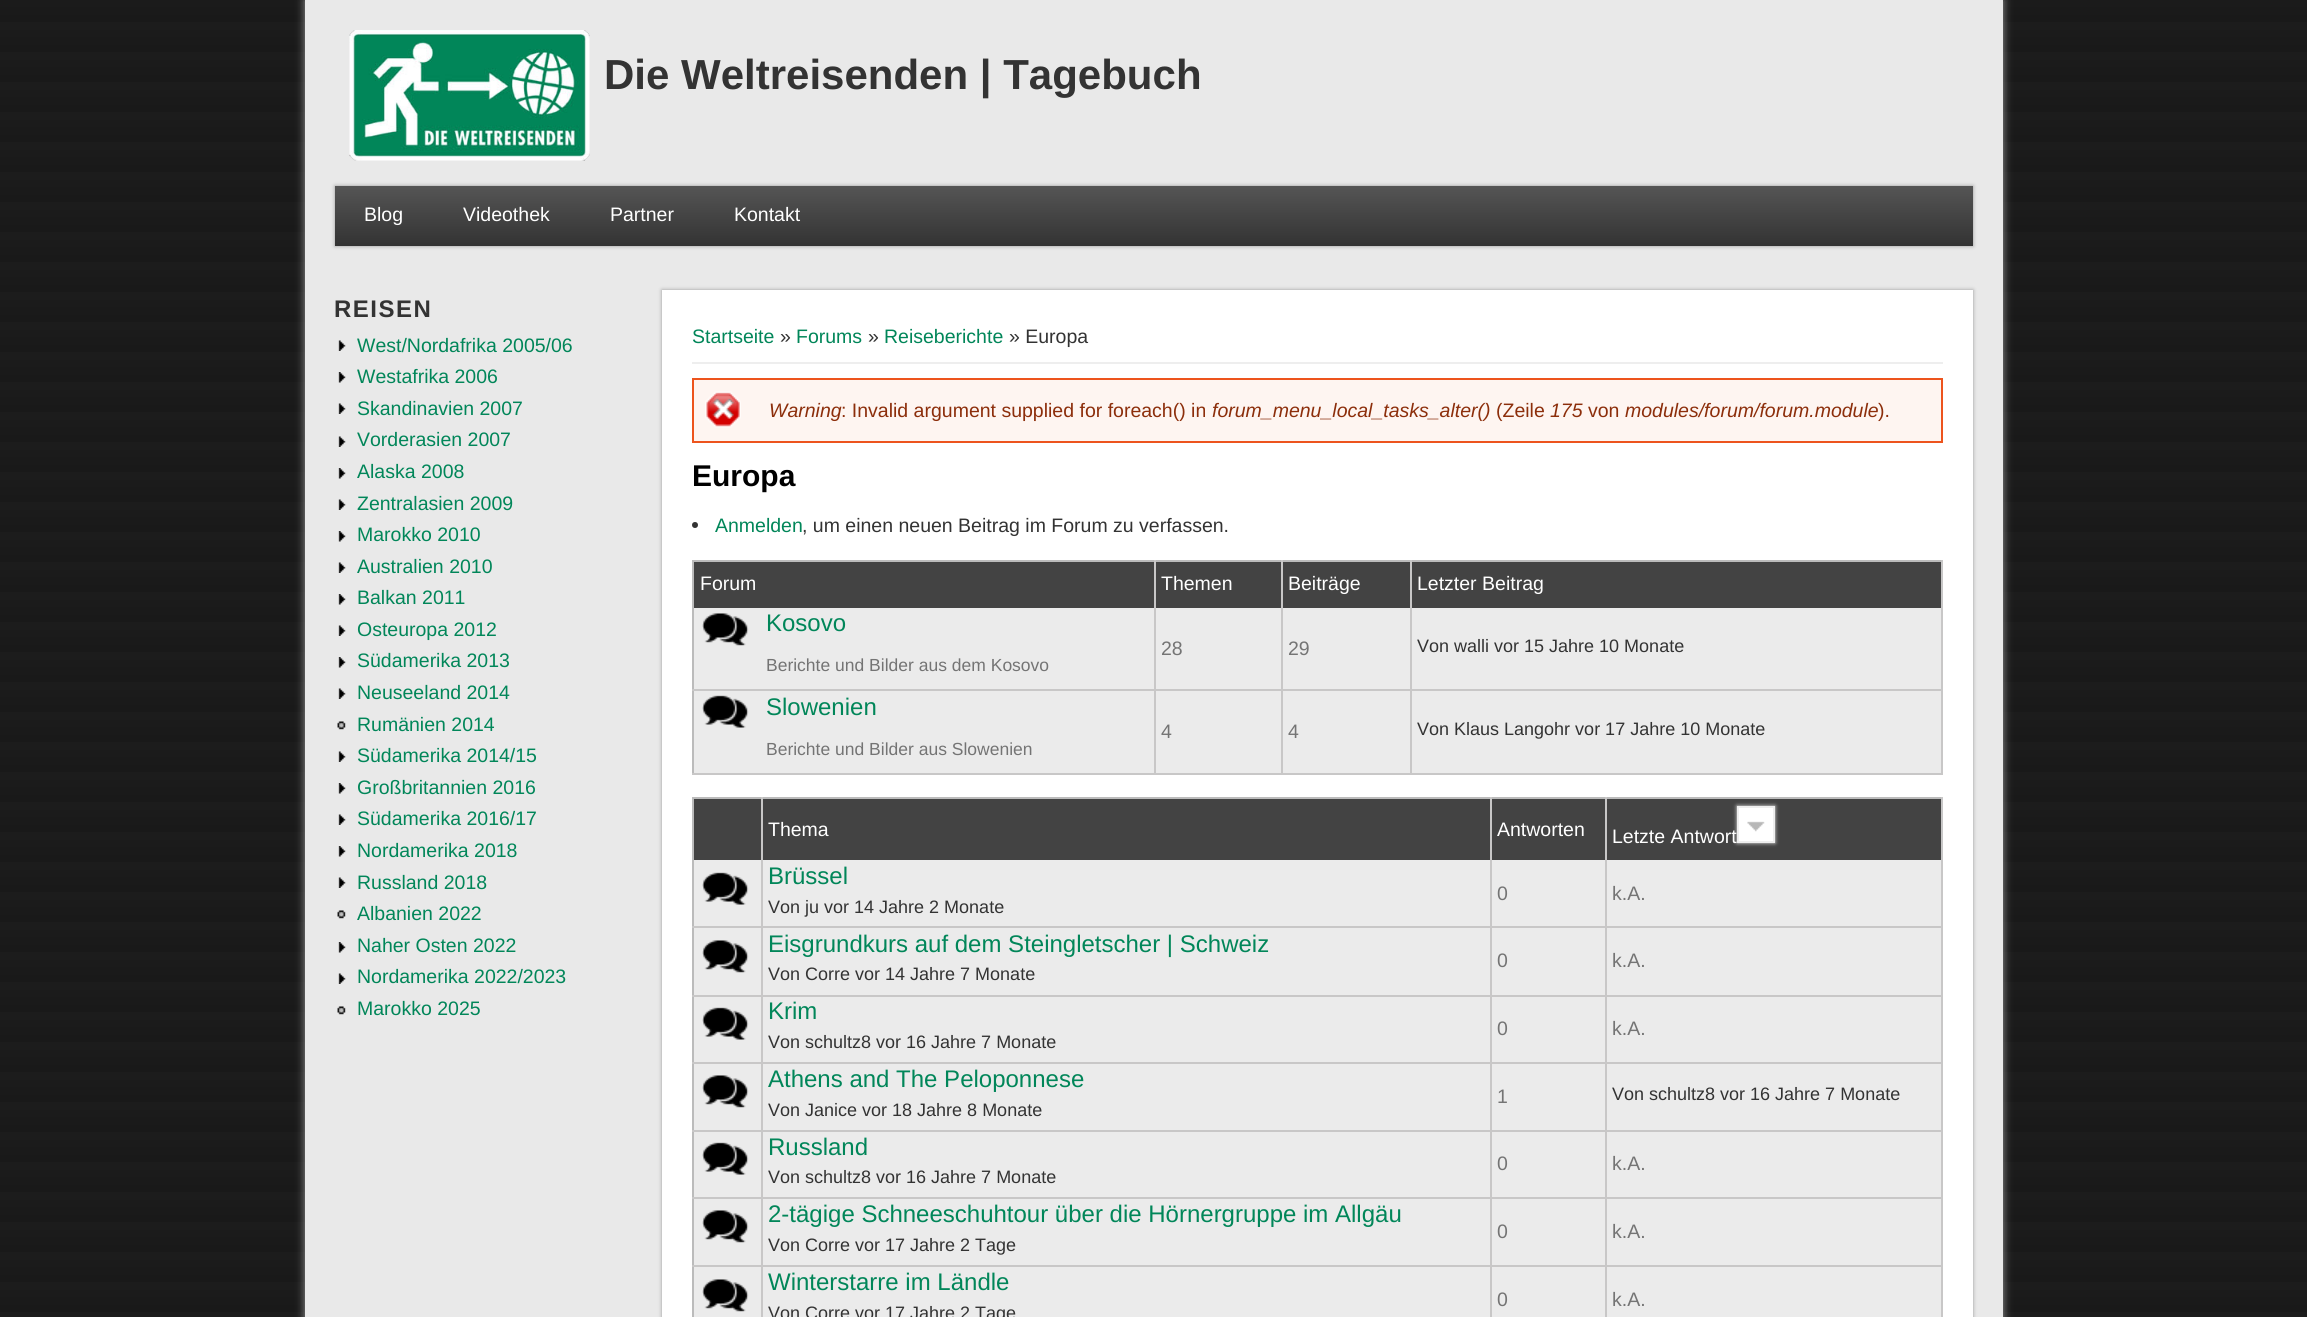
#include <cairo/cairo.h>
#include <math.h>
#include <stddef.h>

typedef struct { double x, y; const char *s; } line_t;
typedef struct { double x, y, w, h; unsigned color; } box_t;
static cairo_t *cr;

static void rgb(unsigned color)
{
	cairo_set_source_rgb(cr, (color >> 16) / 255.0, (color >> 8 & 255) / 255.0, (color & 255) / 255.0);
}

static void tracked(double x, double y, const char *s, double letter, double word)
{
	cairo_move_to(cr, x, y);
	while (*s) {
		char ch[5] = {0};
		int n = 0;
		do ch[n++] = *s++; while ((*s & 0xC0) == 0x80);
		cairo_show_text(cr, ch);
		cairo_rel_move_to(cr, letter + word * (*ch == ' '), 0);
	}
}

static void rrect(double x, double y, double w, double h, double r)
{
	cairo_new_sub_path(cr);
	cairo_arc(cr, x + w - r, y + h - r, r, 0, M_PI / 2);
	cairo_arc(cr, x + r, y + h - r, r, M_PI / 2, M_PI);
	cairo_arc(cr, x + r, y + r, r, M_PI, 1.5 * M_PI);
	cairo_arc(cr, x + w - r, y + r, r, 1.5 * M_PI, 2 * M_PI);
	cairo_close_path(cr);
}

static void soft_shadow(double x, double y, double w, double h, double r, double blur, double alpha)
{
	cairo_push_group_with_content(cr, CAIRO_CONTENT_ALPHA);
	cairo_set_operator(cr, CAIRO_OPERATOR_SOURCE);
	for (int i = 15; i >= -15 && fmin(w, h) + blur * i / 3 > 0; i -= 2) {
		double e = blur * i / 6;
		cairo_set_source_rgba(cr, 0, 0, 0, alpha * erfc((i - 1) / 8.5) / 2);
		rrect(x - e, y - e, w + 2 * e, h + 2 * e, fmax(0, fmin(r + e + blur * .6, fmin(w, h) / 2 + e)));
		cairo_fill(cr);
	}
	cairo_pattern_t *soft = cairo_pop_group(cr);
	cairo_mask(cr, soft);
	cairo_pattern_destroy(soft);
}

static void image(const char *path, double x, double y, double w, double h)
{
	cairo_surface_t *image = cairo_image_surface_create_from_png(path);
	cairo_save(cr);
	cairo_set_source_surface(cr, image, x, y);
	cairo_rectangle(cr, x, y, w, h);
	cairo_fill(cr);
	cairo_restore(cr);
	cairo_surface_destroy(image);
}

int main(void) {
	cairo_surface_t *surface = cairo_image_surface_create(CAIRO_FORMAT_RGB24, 2307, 1317);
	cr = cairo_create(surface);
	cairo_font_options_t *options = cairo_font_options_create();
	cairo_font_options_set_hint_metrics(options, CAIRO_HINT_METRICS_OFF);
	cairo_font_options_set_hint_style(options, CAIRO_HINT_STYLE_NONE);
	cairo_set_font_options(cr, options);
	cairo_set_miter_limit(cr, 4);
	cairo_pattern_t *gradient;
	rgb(0x191919);
	cairo_paint(cr);
	image("img/1.png", 0, 0, 2307, 1317);
	rgb(0x999999);
	soft_shadow(305, 0, 1698, 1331, 0, 4.5, 1);
	rgb(0xe9e9e9);
	cairo_rectangle(cr, 305, 0, 1698, 1317);
	cairo_fill(cr);
	image("img/2.png", 349, 30, 241, 131);
	rgb(0x999999);
	soft_shadow(335, 186, 1638, 60, 0, 2, 1);
	gradient = cairo_pattern_create_linear(1154, 186, 1154, 306);
	cairo_pattern_add_color_stop_rgba(gradient, 0, 0.333, 0.333, 0.333, 1);
	cairo_pattern_add_color_stop_rgba(gradient, 0.5, 0.2, 0.2, 0.2, 1);
	cairo_pattern_add_color_stop_rgba(gradient, 0.5, 0.333, 0.333, 0.333, 1);
	cairo_pattern_add_color_stop_rgba(gradient, 1, 0.2, 0.2, 0.2, 1);
	cairo_set_source(cr, gradient);
	cairo_pattern_destroy(gradient);
	cairo_rectangle(cr, 335, 186, 1638, 60);
	cairo_fill(cr);
	image("img/3.png", 338, 340, 8, 11);
	image("img/4.png", 338, 372, 8, 11);
	image("img/3.png", 338, 403, 8, 11);
	image("img/3.png", 338, 436, 8, 11);
	image("img/4.png", 338, 468, 8, 11);
	image("img/3.png", 338, 499, 8, 11);
	image("img/4.png", 338, 531, 8, 11);
	image("img/3.png", 338, 562, 8, 11);
	image("img/4.png", 338, 594, 8, 11);
	image("img/3.png", 338, 625, 8, 11);
	image("img/4.png", 338, 657, 8, 11);
	image("img/3.png", 338, 688, 8, 11);
	image("img/5.png", 337, 721, 9, 9);
	image("img/3.png", 338, 751, 8, 11);
	image("img/4.png", 338, 783, 8, 11);
	image("img/3.png", 338, 814, 8, 11);
	image("img/4.png", 338, 846, 8, 11);
	image("img/3.png", 338, 877, 8, 11);
	image("img/5.png", 337, 910, 9, 9);
	image("img/4.png", 338, 942, 8, 11);
	image("img/3.png", 338, 973, 8, 11);
	image("img/5.png", 337, 1006, 9, 9);
	rgb(0x999999);
	soft_shadow(662, 290, 1311, 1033, 0, 2, 1);
	{
		static const box_t items[] = {
			{662, 290, 1311, 1027, 0xffffff},
			{692, 362, 1251, 2, 0xeeeeee},
			{694, 380, 1247, 61, 0xfef5f1},
		};
		for (size_t i = 0; i < sizeof items / sizeof *items; i++) {
			rgb(items[i].color);
			cairo_rectangle(cr, items[i].x, items[i].y, items[i].w, items[i].h);
			cairo_fill(cr);
		}
	}
	image("img/6.png", 705, 391, 36, 37);
	cairo_rectangle(cr, 693, 379, 1249, 63);
	rgb(0xed541d);
	cairo_stroke(cr);
	rgb(0x333333);
	cairo_arc(cr, 695, 525, 3, 0, 2 * M_PI);
	cairo_fill(cr);
	{
		static const box_t items[] = {
			{692, 560, 1251, 2, 0xbbbbbb},
			{692, 560, 2, 214, 0xbbbbbb},
			{694, 562, 460, 46, 0x434343},
			{1156, 562, 125, 46, 0x434343},
			{1283, 562, 127, 46, 0x434343},
			{1412, 562, 529, 46, 0x434343},
			{694, 608, 460, 81, 0xebebeb},
			{1941, 560, 2, 214, 0xc8c7c7},
			{1410, 773, 533, 2, 0xc8c7c7},
			{1410, 689, 2, 85, 0xc8c7c7},
			{1410, 689, 533, 2, 0xc8c7c7},
			{1410, 560, 2, 130, 0xc8c7c7},
			{1281, 773, 131, 2, 0xc8c7c7},
			{1281, 689, 2, 85, 0xc8c7c7},
			{1281, 689, 131, 2, 0xc8c7c7},
			{1281, 560, 2, 130, 0xc8c7c7},
			{1154, 773, 129, 2, 0xc8c7c7},
			{1154, 689, 2, 85, 0xc8c7c7},
			{1154, 689, 129, 2, 0xc8c7c7},
			{1154, 560, 2, 130, 0xc8c7c7},
			{692, 689, 463, 2, 0xc8c7c7},
		};
		for (size_t i = 0; i < sizeof items / sizeof *items; i++) {
			rgb(items[i].color);
			cairo_rectangle(cr, items[i].x, items[i].y, items[i].w, items[i].h);
			cairo_fill(cr);
		}
	}
	image("img/7.png", 702, 613, 47, 33);
	{
		static const box_t items[] = {
			{1156, 608, 125, 81, 0xebebeb},
			{1283, 608, 127, 81, 0xebebeb},
			{1412, 608, 529, 81, 0xebebeb},
			{694, 691, 460, 82, 0xebebeb},
			{692, 773, 463, 2, 0xc8c7c7},
		};
		for (size_t i = 0; i < sizeof items / sizeof *items; i++) {
			rgb(items[i].color);
			cairo_rectangle(cr, items[i].x, items[i].y, items[i].w, items[i].h);
			cairo_fill(cr);
		}
	}
	image("img/8.png", 702, 695, 47, 33);
	{
		static const box_t items[] = {
			{1156, 691, 125, 82, 0xebebeb},
			{1283, 691, 127, 82, 0xebebeb},
			{1412, 691, 529, 82, 0xebebeb},
			{692, 797, 1251, 2, 0xbbbbbb},
			{692, 797, 2, 520, 0xbbbbbb},
			{694, 799, 67, 61, 0x434343},
			{763, 799, 727, 61, 0x434343},
			{1492, 799, 113, 61, 0x434343},
			{1607, 799, 334, 61, 0x434343},
		};
		for (size_t i = 0; i < sizeof items / sizeof *items; i++) {
			rgb(items[i].color);
			cairo_rectangle(cr, items[i].x, items[i].y, items[i].w, items[i].h);
			cairo_fill(cr);
		}
	}
	rgb(0xeeeeee);
	soft_shadow(1737, 806, 38, 37, 0, 2, 1);
	rgb(0xffffff);
	cairo_rectangle(cr, 1738, 807, 36, 35);
	cairo_fill_preserve(cr);
	rgb(0xeeeeee);
	cairo_stroke(cr);
	image("img/9.png", 1747, 821, 18, 11);
	{
		static const box_t items[] = {
			{694, 860, 67, 66, 0xebebeb},
			{1605, 1265, 2, 52, 0xc8c7c7},
			{1941, 797, 2, 520, 0xc8c7c7},
			{1605, 1265, 338, 2, 0xc8c7c7},
			{1605, 1197, 2, 69, 0xc8c7c7},
			{1605, 1197, 338, 2, 0xc8c7c7},
			{1605, 1130, 2, 69, 0xc8c7c7},
			{1605, 1130, 338, 2, 0xc8c7c7},
			{1605, 1062, 2, 69, 0xc8c7c7},
			{1605, 1062, 338, 2, 0xc8c7c7},
			{1605, 995, 2, 69, 0xc8c7c7},
			{1605, 995, 338, 2, 0xc8c7c7},
			{1605, 926, 2, 70, 0xc8c7c7},
			{1605, 926, 338, 2, 0xc8c7c7},
			{1605, 797, 2, 130, 0xc8c7c7},
			{1490, 1265, 2, 52, 0xc8c7c7},
			{1490, 1265, 117, 2, 0xc8c7c7},
			{1490, 1197, 2, 69, 0xc8c7c7},
			{1490, 1197, 117, 2, 0xc8c7c7},
			{1490, 1130, 2, 69, 0xc8c7c7},
			{1490, 1130, 117, 2, 0xc8c7c7},
			{1490, 1062, 2, 69, 0xc8c7c7},
			{1490, 1062, 117, 2, 0xc8c7c7},
			{1490, 995, 2, 69, 0xc8c7c7},
			{1490, 995, 117, 2, 0xc8c7c7},
			{1490, 926, 2, 70, 0xc8c7c7},
			{1490, 926, 117, 2, 0xc8c7c7},
			{1490, 797, 2, 130, 0xc8c7c7},
			{761, 1265, 2, 52, 0xc8c7c7},
			{761, 1265, 730, 2, 0xc8c7c7},
			{761, 1197, 2, 69, 0xc8c7c7},
			{761, 1197, 730, 2, 0xc8c7c7},
			{761, 1130, 2, 69, 0xc8c7c7},
			{761, 1130, 730, 2, 0xc8c7c7},
			{761, 1062, 2, 69, 0xc8c7c7},
			{761, 1062, 730, 2, 0xc8c7c7},
			{761, 995, 2, 69, 0xc8c7c7},
			{761, 995, 730, 2, 0xc8c7c7},
			{761, 926, 2, 70, 0xc8c7c7},
			{761, 926, 730, 2, 0xc8c7c7},
			{761, 797, 2, 130, 0xc8c7c7},
			{692, 926, 70, 2, 0xc8c7c7},
		};
		for (size_t i = 0; i < sizeof items / sizeof *items; i++) {
			rgb(items[i].color);
			cairo_rectangle(cr, items[i].x, items[i].y, items[i].w, items[i].h);
			cairo_fill(cr);
		}
	}
	image("img/8.png", 702, 872, 47, 33);
	{
		static const box_t items[] = {
			{763, 860, 727, 66, 0xebebeb},
			{1492, 860, 113, 66, 0xebebeb},
			{1607, 860, 334, 66, 0xebebeb},
			{694, 928, 67, 67, 0xebebeb},
			{692, 995, 70, 2, 0xc8c7c7},
		};
		for (size_t i = 0; i < sizeof items / sizeof *items; i++) {
			rgb(items[i].color);
			cairo_rectangle(cr, items[i].x, items[i].y, items[i].w, items[i].h);
			cairo_fill(cr);
		}
	}
	image("img/7.png", 702, 940, 47, 33);
	{
		static const box_t items[] = {
			{763, 928, 727, 67, 0xebebeb},
			{1492, 928, 113, 67, 0xebebeb},
			{1607, 928, 334, 67, 0xebebeb},
			{694, 997, 67, 65, 0xebebeb},
			{692, 1062, 70, 2, 0xc8c7c7},
		};
		for (size_t i = 0; i < sizeof items / sizeof *items; i++) {
			rgb(items[i].color);
			cairo_rectangle(cr, items[i].x, items[i].y, items[i].w, items[i].h);
			cairo_fill(cr);
		}
	}
	image("img/8.png", 702, 1007, 47, 33);
	{
		static const box_t items[] = {
			{763, 997, 727, 65, 0xebebeb},
			{1492, 997, 113, 65, 0xebebeb},
			{1607, 997, 334, 65, 0xebebeb},
			{694, 1064, 67, 66, 0xebebeb},
			{692, 1130, 70, 2, 0xc8c7c7},
		};
		for (size_t i = 0; i < sizeof items / sizeof *items; i++) {
			rgb(items[i].color);
			cairo_rectangle(cr, items[i].x, items[i].y, items[i].w, items[i].h);
			cairo_fill(cr);
		}
	}
	image("img/7.png", 702, 1075, 47, 33);
	{
		static const box_t items[] = {
			{763, 1064, 727, 66, 0xebebeb},
			{1492, 1064, 113, 66, 0xebebeb},
			{1607, 1064, 334, 66, 0xebebeb},
			{694, 1132, 67, 65, 0xebebeb},
			{692, 1197, 70, 2, 0xc8c7c7},
		};
		for (size_t i = 0; i < sizeof items / sizeof *items; i++) {
			rgb(items[i].color);
			cairo_rectangle(cr, items[i].x, items[i].y, items[i].w, items[i].h);
			cairo_fill(cr);
		}
	}
	image("img/8.png", 702, 1142, 47, 33);
	{
		static const box_t items[] = {
			{763, 1132, 727, 65, 0xebebeb},
			{1492, 1132, 113, 65, 0xebebeb},
			{1607, 1132, 334, 65, 0xebebeb},
			{694, 1199, 67, 66, 0xebebeb},
			{692, 1265, 70, 2, 0xc8c7c7},
		};
		for (size_t i = 0; i < sizeof items / sizeof *items; i++) {
			rgb(items[i].color);
			cairo_rectangle(cr, items[i].x, items[i].y, items[i].w, items[i].h);
			cairo_fill(cr);
		}
	}
	image("img/7.png", 702, 1210, 47, 33);
	{
		static const box_t items[] = {
			{763, 1199, 727, 66, 0xebebeb},
			{1492, 1199, 113, 66, 0xebebeb},
			{1607, 1199, 334, 66, 0xebebeb},
			{694, 1267, 67, 50, 0xebebeb},
		};
		for (size_t i = 0; i < sizeof items / sizeof *items; i++) {
			rgb(items[i].color);
			cairo_rectangle(cr, items[i].x, items[i].y, items[i].w, items[i].h);
			cairo_fill(cr);
		}
	}
	image("img/7.png", 702, 1279, 47, 33);
	{
		static const box_t items[] = {
			{763, 1267, 727, 50, 0xebebeb},
			{1492, 1267, 113, 50, 0xebebeb},
			{1607, 1267, 334, 50, 0xebebeb},
		};
		for (size_t i = 0; i < sizeof items / sizeof *items; i++) {
			rgb(items[i].color);
			cairo_rectangle(cr, items[i].x, items[i].y, items[i].w, items[i].h);
			cairo_fill(cr);
		}
	}
	cairo_select_font_face(cr, "Liberation Sans", CAIRO_FONT_SLANT_NORMAL, CAIRO_FONT_WEIGHT_BOLD);
	cairo_set_font_size(cr, 42);
	rgb(0x333333);
	cairo_move_to(cr, 604, 89);
	cairo_show_text(cr, "Die Weltreisenden | Tagebuch");
	cairo_select_font_face(cr, "Liberation Sans", CAIRO_FONT_SLANT_NORMAL, CAIRO_FONT_WEIGHT_NORMAL);
	cairo_set_font_size(cr, 19.5);
	rgb(0xffffff);
	{
		static const line_t items[] = {
			{364, 221, "Blog"},
			{463, 221, "Videothek"},
			{610, 221, "Partner"},
			{734, 221, "Kontakt"},
		};
		for (size_t i = 0; i < sizeof items / sizeof *items; i++) {
			cairo_move_to(cr, items[i].x, items[i].y);
			cairo_show_text(cr, items[i].s);
		}
	}
	cairo_select_font_face(cr, "Liberation Sans", CAIRO_FONT_SLANT_NORMAL, CAIRO_FONT_WEIGHT_BOLD);
	cairo_set_font_size(cr, 24);
	rgb(0x333333);
	tracked(334, 317, "REISEN", 1.5, 0);
	cairo_select_font_face(cr, "Liberation Sans", CAIRO_FONT_SLANT_NORMAL, CAIRO_FONT_WEIGHT_NORMAL);
	cairo_set_font_size(cr, 19.5);
	rgb(0x018659);
	{
		static const line_t items[] = {
			{357, 352, "West/Nordafrika 2005/06"},
			{357, 383, "Westafrika 2006"},
			{357, 415, "Skandinavien 2007"},
			{357, 446, "Vorderasien 2007"},
			{357, 478, "Alaska 2008"},
			{357, 510, "Zentralasien 2009"},
			{357, 541, "Marokko 2010"},
			{357, 573, "Australien 2010"},
			{357, 604, "Balkan 2011"},
			{357, 636, "Osteuropa 2012"},
			{357, 667, "Südamerika 2013"},
			{357, 699, "Neuseeland 2014"},
			{357, 731, "Rumänien 2014"},
			{357, 762, "Südamerika 2014/15"},
			{357, 794, "Großbritannien 2016"},
			{357, 825, "Südamerika 2016/17"},
			{357, 857, "Nordamerika 2018"},
			{357, 889, "Russland 2018"},
			{357, 920, "Albanien 2022"},
			{357, 952, "Naher Osten 2022"},
			{357, 983, "Nordamerika 2022/2023"},
			{357, 1015, "Marokko 2025"},
			{692, 343, "Startseite"},
		};
		for (size_t i = 0; i < sizeof items / sizeof *items; i++) {
			cairo_move_to(cr, items[i].x, items[i].y);
			cairo_show_text(cr, items[i].s);
		}
	}
	rgb(0x333333);
	cairo_move_to(cr, 780, 343);
	cairo_show_text(cr, "»");
	rgb(0x018659);
	cairo_move_to(cr, 796, 343);
	cairo_show_text(cr, "Forums");
	rgb(0x333333);
	cairo_move_to(cr, 868, 343);
	cairo_show_text(cr, "»");
	rgb(0x018659);
	cairo_move_to(cr, 884, 343);
	cairo_show_text(cr, "Reiseberichte");
	rgb(0x333333);
	cairo_move_to(cr, 1009, 343);
	cairo_show_text(cr, "» Europa");
	cairo_select_font_face(cr, "Liberation Sans", CAIRO_FONT_SLANT_ITALIC, CAIRO_FONT_WEIGHT_NORMAL);
	rgb(0x8c2e0b);
	cairo_move_to(cr, 769, 417);
	cairo_show_text(cr, "Warning");
	cairo_select_font_face(cr, "Liberation Sans", CAIRO_FONT_SLANT_NORMAL, CAIRO_FONT_WEIGHT_NORMAL);
	cairo_move_to(cr, 841, 417);
	cairo_show_text(cr, ": Invalid argument supplied for foreach() in");
	cairo_select_font_face(cr, "Liberation Sans", CAIRO_FONT_SLANT_ITALIC, CAIRO_FONT_WEIGHT_NORMAL);
	cairo_move_to(cr, 1212, 417);
	cairo_show_text(cr, "forum_menu_local_tasks_alter()");
	cairo_select_font_face(cr, "Liberation Sans", CAIRO_FONT_SLANT_NORMAL, CAIRO_FONT_WEIGHT_NORMAL);
	cairo_move_to(cr, 1496, 417);
	cairo_show_text(cr, "(Zeile");
	cairo_select_font_face(cr, "Liberation Sans", CAIRO_FONT_SLANT_ITALIC, CAIRO_FONT_WEIGHT_NORMAL);
	cairo_move_to(cr, 1550, 417);
	cairo_show_text(cr, "175");
	cairo_select_font_face(cr, "Liberation Sans", CAIRO_FONT_SLANT_NORMAL, CAIRO_FONT_WEIGHT_NORMAL);
	cairo_move_to(cr, 1588, 417);
	cairo_show_text(cr, "von");
	cairo_select_font_face(cr, "Liberation Sans", CAIRO_FONT_SLANT_ITALIC, CAIRO_FONT_WEIGHT_NORMAL);
	cairo_move_to(cr, 1625, 417);
	cairo_show_text(cr, "modules/forum/forum.module");
	cairo_select_font_face(cr, "Liberation Sans", CAIRO_FONT_SLANT_NORMAL, CAIRO_FONT_WEIGHT_NORMAL);
	cairo_move_to(cr, 1878, 417);
	cairo_show_text(cr, ").");
	cairo_select_font_face(cr, "Liberation Sans", CAIRO_FONT_SLANT_NORMAL, CAIRO_FONT_WEIGHT_BOLD);
	cairo_set_font_size(cr, 30);
	rgb(0x000000);
	cairo_move_to(cr, 692, 486);
	cairo_show_text(cr, "Europa");
	cairo_select_font_face(cr, "Liberation Sans", CAIRO_FONT_SLANT_NORMAL, CAIRO_FONT_WEIGHT_NORMAL);
	cairo_set_font_size(cr, 19.5);
	rgb(0x018659);
	cairo_move_to(cr, 715, 532);
	cairo_show_text(cr, "Anmelden");
	rgb(0x333333);
	cairo_move_to(cr, 802, 532);
	cairo_show_text(cr, ", um einen neuen Beitrag im Forum zu verfassen.");
	rgb(0xffffff);
	{
		static const line_t items[] = {
			{700, 590, "Forum"},
			{1161, 590, "Themen"},
			{1288, 590, "Beiträge"},
			{1417, 590, "Letzter Beitrag"},
		};
		for (size_t i = 0; i < sizeof items / sizeof *items; i++) {
			cairo_move_to(cr, items[i].x, items[i].y);
			cairo_show_text(cr, items[i].s);
		}
	}
	cairo_set_font_size(cr, 24);
	rgb(0x018659);
	cairo_move_to(cr, 766, 631);
	cairo_show_text(cr, "Kosovo");
	cairo_set_font_size(cr, 17.5);
	rgb(0x747474);
	cairo_move_to(cr, 766, 671);
	cairo_show_text(cr, "Berichte und Bilder aus dem Kosovo");
	cairo_set_font_size(cr, 19.5);
	cairo_move_to(cr, 1161, 655);
	cairo_show_text(cr, "28");
	cairo_move_to(cr, 1288, 655);
	cairo_show_text(cr, "29");
	cairo_set_font_size(cr, 18);
	rgb(0x333333);
	cairo_move_to(cr, 1417, 652);
	cairo_show_text(cr, "Von walli vor 15 Jahre 10 Monate");
	cairo_set_font_size(cr, 24);
	rgb(0x018659);
	cairo_move_to(cr, 766, 715);
	cairo_show_text(cr, "Slowenien");
	cairo_set_font_size(cr, 17.5);
	rgb(0x747474);
	cairo_move_to(cr, 766, 755);
	cairo_show_text(cr, "Berichte und Bilder aus Slowenien");
	cairo_set_font_size(cr, 19.5);
	cairo_move_to(cr, 1161, 738);
	cairo_show_text(cr, "4");
	cairo_move_to(cr, 1288, 738);
	cairo_show_text(cr, "4");
	cairo_set_font_size(cr, 18);
	rgb(0x333333);
	cairo_move_to(cr, 1417, 735);
	cairo_show_text(cr, "Von Klaus Langohr vor 17 Jahre 10 Monate");
	cairo_set_font_size(cr, 19.5);
	rgb(0xffffff);
	{
		static const line_t items[] = {
			{768, 836, "Thema"},
			{1497, 836, "Antworten"},
			{1612, 843, "Letzte Antwort"},
		};
		for (size_t i = 0; i < sizeof items / sizeof *items; i++) {
			cairo_move_to(cr, items[i].x, items[i].y);
			cairo_show_text(cr, items[i].s);
		}
	}
	cairo_set_font_size(cr, 24);
	rgb(0x018659);
	cairo_move_to(cr, 768, 884);
	cairo_show_text(cr, "Brüssel");
	cairo_set_font_size(cr, 18);
	rgb(0x333333);
	cairo_move_to(cr, 768, 913);
	cairo_show_text(cr, "Von ju vor 14 Jahre 2 Monate");
	cairo_set_font_size(cr, 19.5);
	rgb(0x747474);
	cairo_move_to(cr, 1497, 900);
	cairo_show_text(cr, "0");
	cairo_move_to(cr, 1612, 900);
	cairo_show_text(cr, "k.A.");
	cairo_set_font_size(cr, 24);
	rgb(0x018659);
	cairo_move_to(cr, 768, 952);
	cairo_show_text(cr, "Eisgrundkurs auf dem Steingletscher | Schweiz");
	cairo_set_font_size(cr, 18);
	rgb(0x333333);
	cairo_move_to(cr, 768, 980);
	cairo_show_text(cr, "Von Corre vor 14 Jahre 7 Monate");
	cairo_set_font_size(cr, 19.5);
	rgb(0x747474);
	cairo_move_to(cr, 1497, 967);
	cairo_show_text(cr, "0");
	cairo_move_to(cr, 1612, 967);
	cairo_show_text(cr, "k.A.");
	cairo_set_font_size(cr, 24);
	rgb(0x018659);
	cairo_move_to(cr, 768, 1019);
	cairo_show_text(cr, "Krim");
	cairo_set_font_size(cr, 18);
	rgb(0x333333);
	cairo_move_to(cr, 768, 1048);
	cairo_show_text(cr, "Von schultz8 vor 16 Jahre 7 Monate");
	cairo_set_font_size(cr, 19.5);
	rgb(0x747474);
	cairo_move_to(cr, 1497, 1035);
	cairo_show_text(cr, "0");
	cairo_move_to(cr, 1612, 1035);
	cairo_show_text(cr, "k.A.");
	cairo_set_font_size(cr, 24);
	rgb(0x018659);
	cairo_move_to(cr, 768, 1087);
	cairo_show_text(cr, "Athens and The Peloponnese");
	cairo_set_font_size(cr, 18);
	rgb(0x333333);
	cairo_move_to(cr, 768, 1116);
	cairo_show_text(cr, "Von Janice vor 18 Jahre 8 Monate");
	cairo_set_font_size(cr, 19.5);
	rgb(0x747474);
	cairo_move_to(cr, 1497, 1103);
	cairo_show_text(cr, "1");
	cairo_set_font_size(cr, 18);
	rgb(0x333333);
	cairo_move_to(cr, 1612, 1100);
	cairo_show_text(cr, "Von schultz8 vor 16 Jahre 7 Monate");
	cairo_set_font_size(cr, 24);
	rgb(0x018659);
	cairo_move_to(cr, 768, 1155);
	cairo_show_text(cr, "Russland");
	cairo_set_font_size(cr, 18);
	rgb(0x333333);
	cairo_move_to(cr, 768, 1183);
	cairo_show_text(cr, "Von schultz8 vor 16 Jahre 7 Monate");
	cairo_set_font_size(cr, 19.5);
	rgb(0x747474);
	cairo_move_to(cr, 1497, 1170);
	cairo_show_text(cr, "0");
	cairo_move_to(cr, 1612, 1170);
	cairo_show_text(cr, "k.A.");
	cairo_set_font_size(cr, 24);
	rgb(0x018659);
	cairo_move_to(cr, 768, 1222);
	cairo_show_text(cr, "2-tägige Schneeschuhtour über die Hörnergruppe im Allgäu");
	cairo_set_font_size(cr, 18);
	rgb(0x333333);
	cairo_move_to(cr, 768, 1251);
	cairo_show_text(cr, "Von Corre vor 17 Jahre 2 Tage");
	cairo_set_font_size(cr, 19.5);
	rgb(0x747474);
	cairo_move_to(cr, 1497, 1238);
	cairo_show_text(cr, "0");
	cairo_move_to(cr, 1612, 1238);
	cairo_show_text(cr, "k.A.");
	cairo_set_font_size(cr, 24);
	rgb(0x018659);
	cairo_move_to(cr, 768, 1290);
	cairo_show_text(cr, "Winterstarre im Ländle");
	cairo_set_font_size(cr, 18);
	rgb(0x333333);
	cairo_move_to(cr, 768, 1319);
	cairo_show_text(cr, "Von Corre vor 17 Jahre 2 Tage");
	cairo_set_font_size(cr, 19.5);
	rgb(0x747474);
	cairo_move_to(cr, 1497, 1306);
	cairo_show_text(cr, "0");
	cairo_move_to(cr, 1612, 1306);
	cairo_show_text(cr, "k.A.");
	cairo_surface_write_to_png(surface, "page.png");
	cairo_font_options_destroy(options);
	cairo_destroy(cr);
	cairo_surface_destroy(surface);
	return 0;
}
